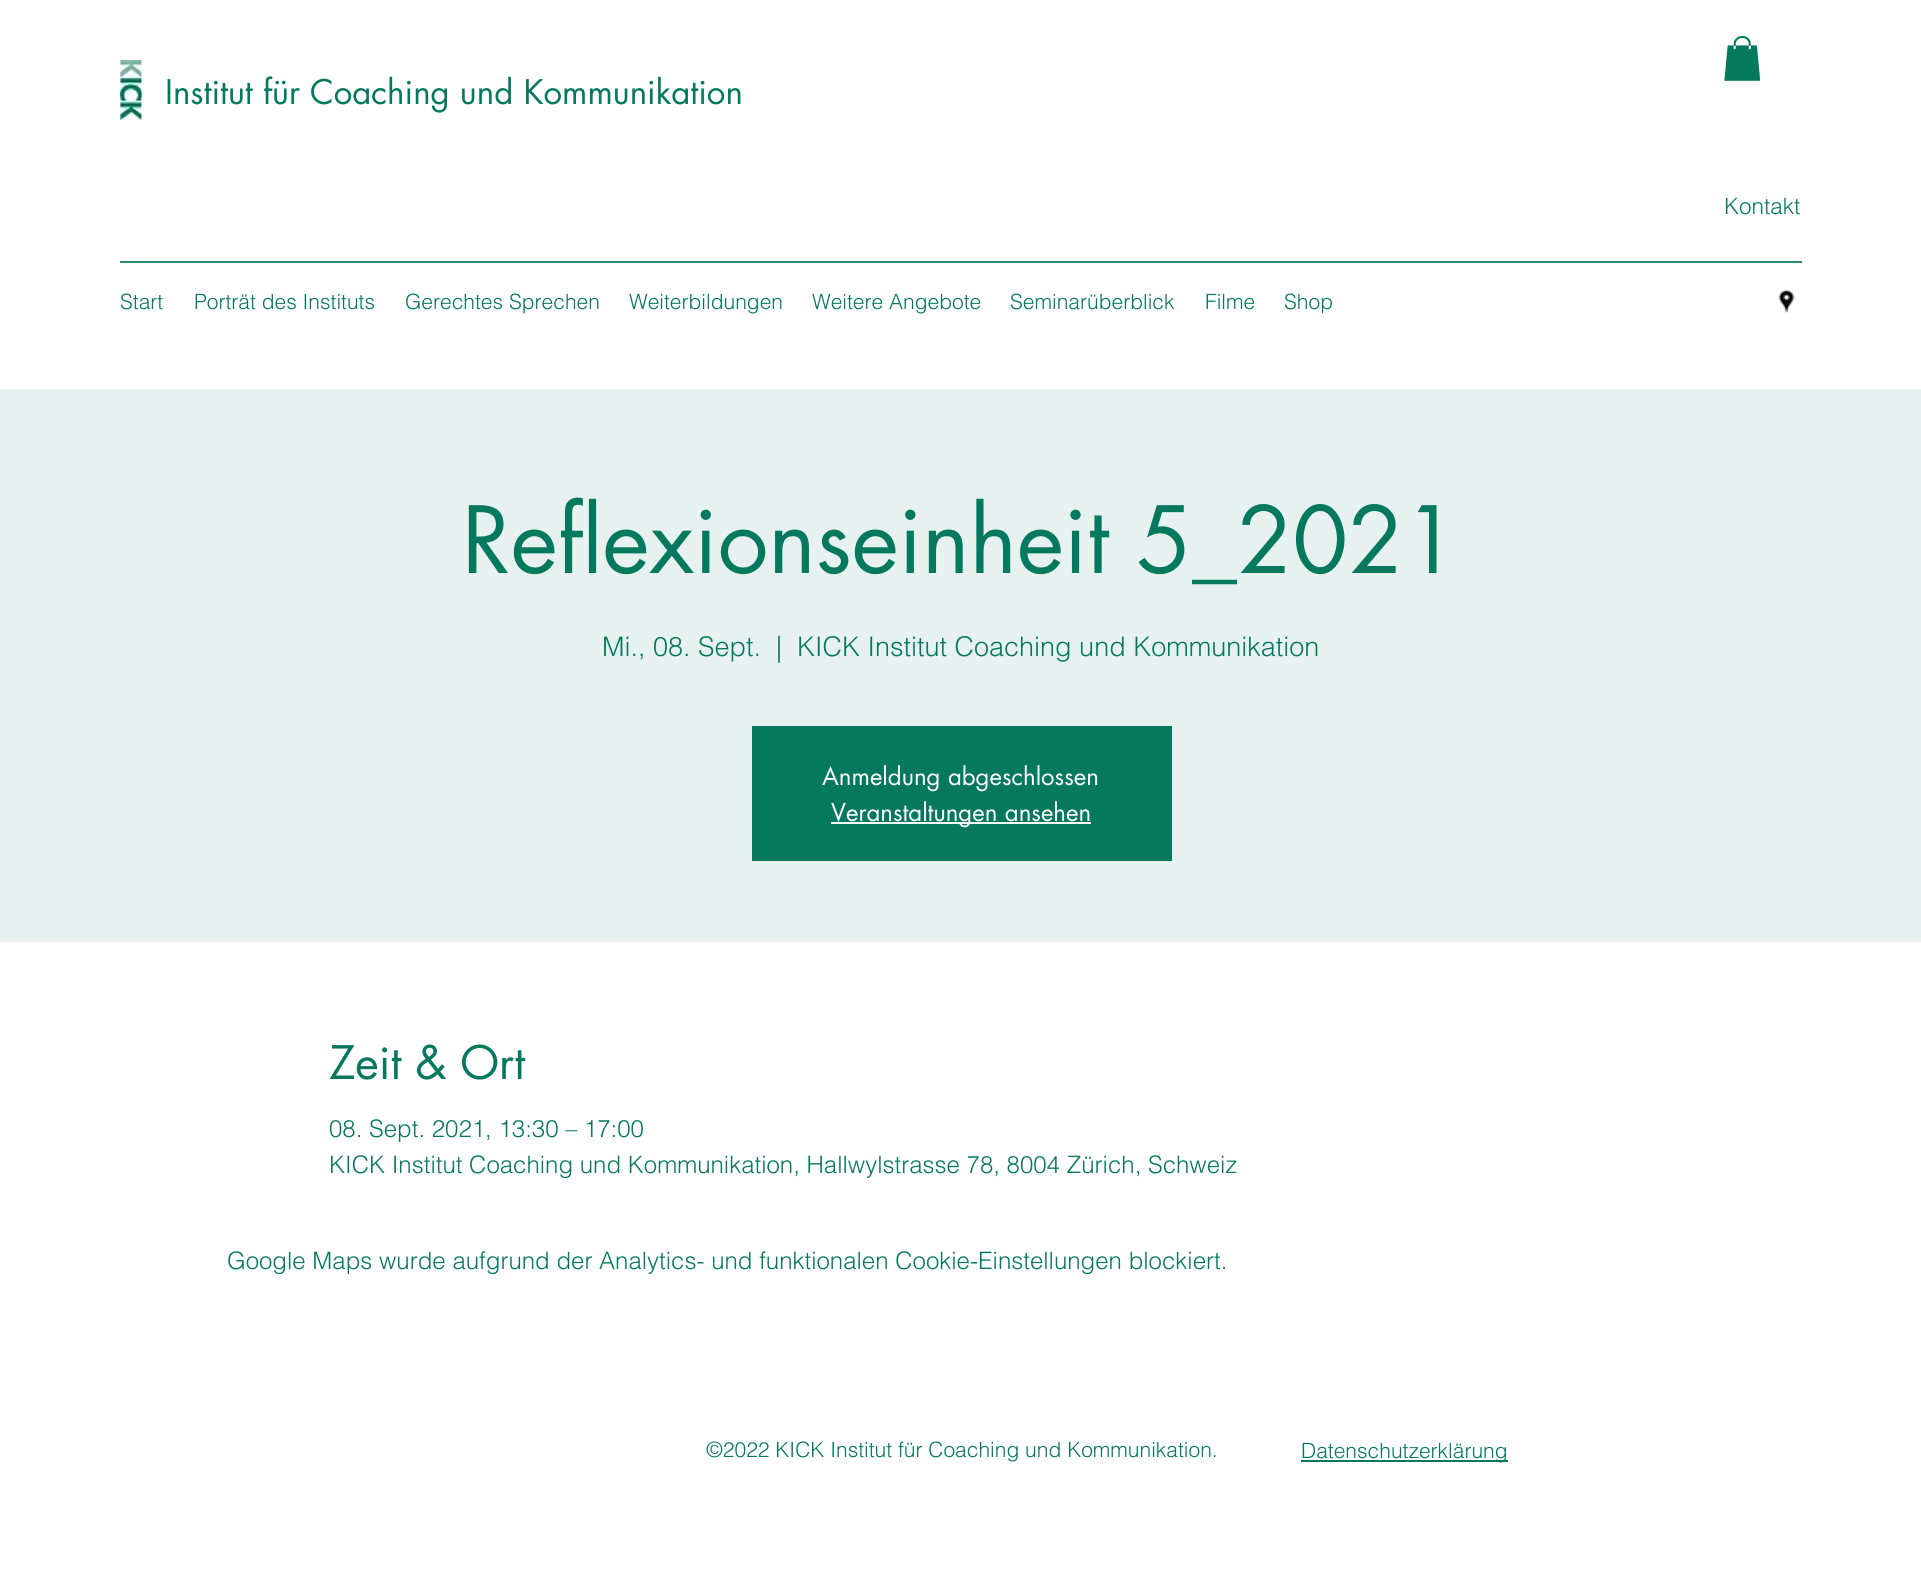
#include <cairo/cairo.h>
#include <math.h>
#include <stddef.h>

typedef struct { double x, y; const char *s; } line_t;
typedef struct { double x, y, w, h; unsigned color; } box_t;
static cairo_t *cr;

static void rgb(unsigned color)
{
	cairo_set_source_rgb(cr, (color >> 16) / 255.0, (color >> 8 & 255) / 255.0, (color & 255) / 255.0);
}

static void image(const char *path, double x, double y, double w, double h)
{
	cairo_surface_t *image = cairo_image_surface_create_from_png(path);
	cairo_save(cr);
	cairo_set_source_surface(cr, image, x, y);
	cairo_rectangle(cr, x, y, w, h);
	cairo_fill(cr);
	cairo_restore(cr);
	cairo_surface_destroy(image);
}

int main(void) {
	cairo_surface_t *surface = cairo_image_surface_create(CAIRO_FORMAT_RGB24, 1921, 1596);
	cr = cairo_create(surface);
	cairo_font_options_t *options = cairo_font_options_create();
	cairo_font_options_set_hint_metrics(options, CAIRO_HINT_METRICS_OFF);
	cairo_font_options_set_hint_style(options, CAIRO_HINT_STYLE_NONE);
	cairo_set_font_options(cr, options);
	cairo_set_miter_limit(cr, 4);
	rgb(0xffffff);
	cairo_paint(cr);
	image("img/1.png", 120, 60, 23, 60);
	image("img/2.png", 1724, 36, 37, 45);
	rgb(0x2b8d75);
	cairo_rectangle(cr, 120, 261, 1682, 2);
	cairo_fill(cr);
	image("img/3.png", 1778, 289, 17, 24);
	{
		static const box_t items[] = {
			{0, 389, 1921, 553, 0xe7f2f0},
			{752, 726, 420, 135, 0x05795d},
			{831, 822, 260, 2, 0xffffff},
			{1301, 1460, 207, 2, 0x05795d},
		};
		for (size_t i = 0; i < sizeof items / sizeof *items; i++) {
			rgb(items[i].color);
			cairo_rectangle(cr, items[i].x, items[i].y, items[i].w, items[i].h);
			cairo_fill(cr);
		}
	}
	cairo_select_font_face(cr, "futura", CAIRO_FONT_SLANT_NORMAL, CAIRO_FONT_WEIGHT_NORMAL);
	cairo_set_font_size(cr, 33);
	cairo_move_to(cr, 165, 104);
	cairo_show_text(cr, "Institut für Coaching und Kommunikation");
	cairo_select_font_face(cr, "helvetica Light", CAIRO_FONT_SLANT_NORMAL, CAIRO_FONT_WEIGHT_NORMAL);
	cairo_set_font_size(cr, 22.5);
	cairo_move_to(cr, 1724, 214);
	cairo_show_text(cr, "Kontakt");
	cairo_set_font_size(cr, 21);
	{
		static const line_t items[] = {
			{120, 309, "Start"},
			{194, 309, "Porträt des Instituts"},
			{405, 309, "Gerechtes Sprechen"},
			{629, 309, "Weiterbildungen"},
			{812, 309, "Weitere Angebote"},
			{1010, 309, "Seminarüberblick"},
			{1205, 309, "Filme"},
			{1284, 309, "Shop"},
		};
		for (size_t i = 0; i < sizeof items / sizeof *items; i++) {
			cairo_move_to(cr, items[i].x, items[i].y);
			cairo_show_text(cr, items[i].s);
		}
	}
	cairo_select_font_face(cr, "futura", CAIRO_FONT_SLANT_NORMAL, CAIRO_FONT_WEIGHT_NORMAL);
	cairo_set_font_size(cr, 90);
	cairo_move_to(cr, 462, 573);
	cairo_show_text(cr, "Reflexionseinheit 5_2021");
	cairo_select_font_face(cr, "helvetica Light", CAIRO_FONT_SLANT_NORMAL, CAIRO_FONT_WEIGHT_NORMAL);
	cairo_set_font_size(cr, 27);
	{
		static const line_t items[] = {
			{602, 656, "Mi., 08. Sept."},
			{776, 656, "|"},
			{797, 656, "KICK Institut Coaching und Kommunikation"},
		};
		for (size_t i = 0; i < sizeof items / sizeof *items; i++) {
			cairo_move_to(cr, items[i].x, items[i].y);
			cairo_show_text(cr, items[i].s);
		}
	}
	cairo_select_font_face(cr, "futura", CAIRO_FONT_SLANT_NORMAL, CAIRO_FONT_WEIGHT_NORMAL);
	cairo_set_font_size(cr, 24);
	rgb(0xffffff);
	cairo_move_to(cr, 822, 785);
	cairo_show_text(cr, "Anmeldung abgeschlossen");
	cairo_move_to(cr, 831, 821);
	cairo_show_text(cr, "Veranstaltungen ansehen");
	cairo_set_font_size(cr, 45);
	rgb(0x05795d);
	cairo_move_to(cr, 329, 1079);
	cairo_show_text(cr, "Zeit & Ort");
	cairo_select_font_face(cr, "helvetica Light", CAIRO_FONT_SLANT_NORMAL, CAIRO_FONT_WEIGHT_NORMAL);
	cairo_set_font_size(cr, 24);
	{
		static const line_t items[] = {
			{329, 1137, "08. Sept. 2021, 13:30 – 17:00"},
			{329, 1173, "KICK Institut Coaching und Kommunikation, Hallwylstrasse 78, 8004 Zürich, Schweiz"},
			{227, 1269, "Google Maps wurde aufgrund der Analytics- und funktionalen Cookie-Einstellungen blockiert."},
		};
		for (size_t i = 0; i < sizeof items / sizeof *items; i++) {
			cairo_move_to(cr, items[i].x, items[i].y);
			cairo_show_text(cr, items[i].s);
		}
	}
	cairo_set_font_size(cr, 21);
	cairo_move_to(cr, 706, 1457);
	cairo_show_text(cr, "©2022 KICK Institut für Coaching und Kommunikation.");
	cairo_move_to(cr, 1301, 1458);
	cairo_show_text(cr, "Datenschutzerklärung");
	cairo_surface_write_to_png(surface, "page.png");
	cairo_font_options_destroy(options);
	cairo_destroy(cr);
	cairo_surface_destroy(surface);
	return 0;
}
